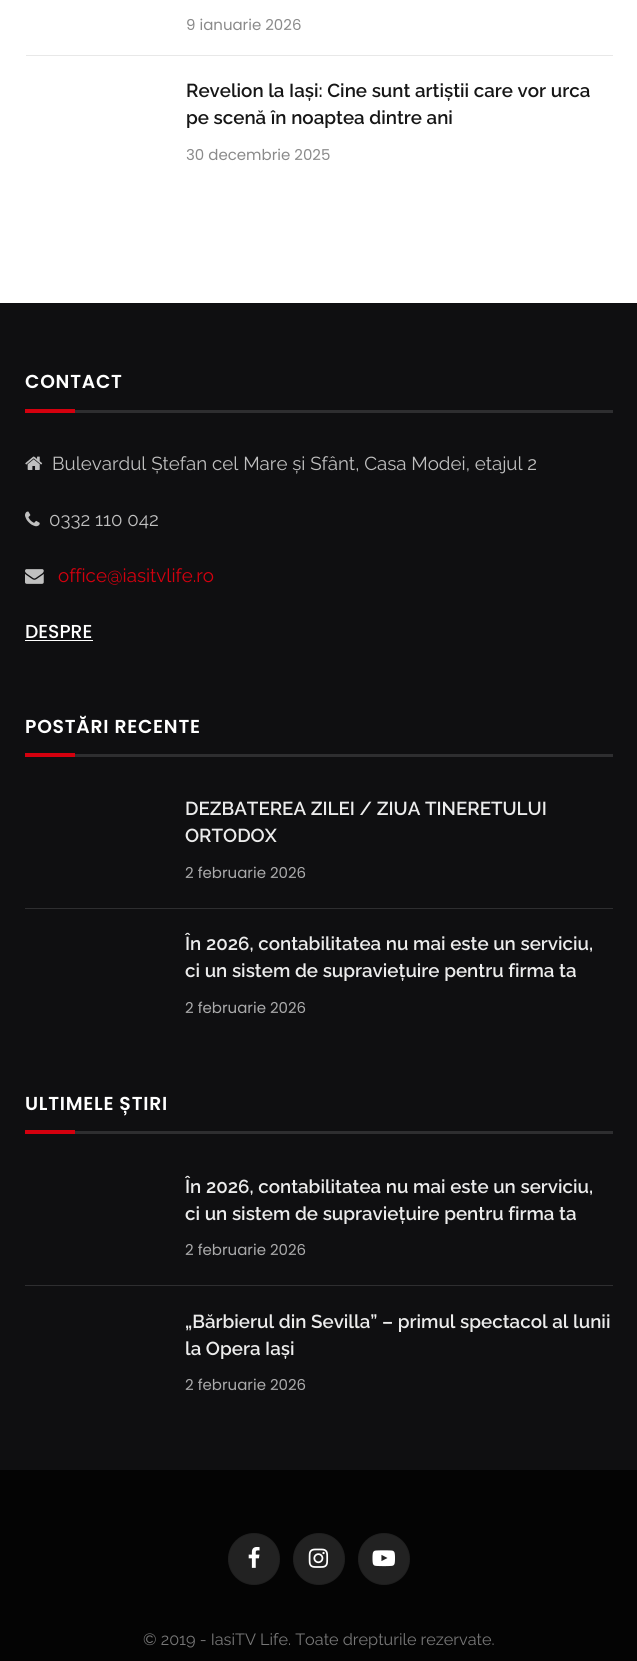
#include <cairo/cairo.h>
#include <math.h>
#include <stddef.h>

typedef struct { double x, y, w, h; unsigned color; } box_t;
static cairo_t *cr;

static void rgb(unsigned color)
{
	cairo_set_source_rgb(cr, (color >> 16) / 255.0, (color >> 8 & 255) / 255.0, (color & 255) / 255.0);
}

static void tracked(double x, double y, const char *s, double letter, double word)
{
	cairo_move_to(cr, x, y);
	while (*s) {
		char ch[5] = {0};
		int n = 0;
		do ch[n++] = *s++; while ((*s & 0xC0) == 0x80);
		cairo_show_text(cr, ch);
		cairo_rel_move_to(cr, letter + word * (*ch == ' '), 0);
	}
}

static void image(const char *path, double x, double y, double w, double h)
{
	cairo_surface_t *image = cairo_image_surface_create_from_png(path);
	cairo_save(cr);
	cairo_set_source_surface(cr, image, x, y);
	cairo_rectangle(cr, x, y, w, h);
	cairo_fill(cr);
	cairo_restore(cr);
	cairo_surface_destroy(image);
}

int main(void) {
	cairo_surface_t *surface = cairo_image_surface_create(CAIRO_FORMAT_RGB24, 637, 1661);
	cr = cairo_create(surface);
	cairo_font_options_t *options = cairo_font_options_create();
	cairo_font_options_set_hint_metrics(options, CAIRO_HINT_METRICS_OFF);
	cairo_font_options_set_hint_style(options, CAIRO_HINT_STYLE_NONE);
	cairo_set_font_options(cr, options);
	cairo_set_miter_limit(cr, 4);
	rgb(0xffffff);
	cairo_paint(cr);
	{
		static const box_t items[] = {
			{26, 55, 587, 1, 0xe8e8e8},
			{0, 303, 637, 1167, 0x0f0f11},
			{75, 410, 538, 3, 0x2e2e30},
			{25, 409, 50, 4, 0xd4000e},
		};
		for (size_t i = 0; i < sizeof items / sizeof *items; i++) {
			rgb(items[i].color);
			cairo_rectangle(cr, items[i].x, items[i].y, items[i].w, items[i].h);
			cairo_fill(cr);
		}
	}
	image("img/1.png", 25, 456, 18, 14);
	image("img/2.png", 25, 511, 15, 16);
	image("img/3.png", 25, 569, 19, 15);
	{
		static const box_t items[] = {
			{25, 640, 68, 1, 0xffffff},
			{75, 754, 538, 3, 0x2e2e30},
			{25, 753, 50, 4, 0xd4000e},
			{25, 908, 588, 1, 0x2e2e30},
			{75, 1131, 538, 3, 0x2e2e30},
			{25, 1130, 50, 4, 0xd4000e},
			{25, 1285, 588, 1, 0x2e2e30},
			{0, 1470, 637, 191, 0x040404},
		};
		for (size_t i = 0; i < sizeof items / sizeof *items; i++) {
			rgb(items[i].color);
			cairo_rectangle(cr, items[i].x, items[i].y, items[i].w, items[i].h);
			cairo_fill(cr);
		}
	}
	rgb(0x222222);
	cairo_arc(cr, 254, 1559, 26, 0, 2 * M_PI);
	cairo_fill(cr);
	cairo_arc(cr, 254, 1559, 25.5, 0, 2 * M_PI);
	cairo_set_source_rgba(cr, 0, 0, 0, 0.09);
	cairo_set_line_width(cr, 1);
	cairo_stroke(cr);
	image("img/4.png", 248, 1547, 12, 21);
	rgb(0x222222);
	cairo_arc(cr, 319, 1559, 26, 0, 2 * M_PI);
	cairo_fill(cr);
	cairo_arc(cr, 319, 1559, 25.5, 0, 2 * M_PI);
	cairo_set_source_rgba(cr, 0, 0, 0, 0.09);
	cairo_stroke(cr);
	image("img/5.png", 308, 1548, 21, 20);
	rgb(0x222222);
	cairo_arc(cr, 384, 1559, 26, 0, 2 * M_PI);
	cairo_fill(cr);
	cairo_arc(cr, 384, 1559, 25.5, 0, 2 * M_PI);
	cairo_set_source_rgba(cr, 0, 0, 0, 0.09);
	cairo_stroke(cr);
	image("img/6.png", 372, 1550, 23, 17);
	cairo_select_font_face(cr, "Poppins", CAIRO_FONT_SLANT_NORMAL, CAIRO_FONT_WEIGHT_NORMAL);
	cairo_set_font_size(cr, 15);
	rgb(0x8a8a8a);
	cairo_move_to(cr, 186, 30);
	cairo_show_text(cr, "9 ianuarie 2026");
	cairo_select_font_face(cr, "Raleway SemiBold", CAIRO_FONT_SLANT_NORMAL, CAIRO_FONT_WEIGHT_NORMAL);
	cairo_set_font_size(cr, 18.75);
	rgb(0x161616);
	cairo_move_to(cr, 186, 97);
	cairo_show_text(cr, "Revelion la Iași: Cine sunt artiștii care vor urca");
	cairo_move_to(cr, 186, 124);
	cairo_show_text(cr, "pe scenă în noaptea dintre ani");
	cairo_select_font_face(cr, "Poppins", CAIRO_FONT_SLANT_NORMAL, CAIRO_FONT_WEIGHT_NORMAL);
	cairo_set_font_size(cr, 15);
	rgb(0x8a8a8a);
	cairo_move_to(cr, 186, 160);
	cairo_show_text(cr, "30 decembrie 2025");
	cairo_select_font_face(cr, "Poppins SemiBold", CAIRO_FONT_SLANT_NORMAL, CAIRO_FONT_WEIGHT_NORMAL);
	cairo_set_font_size(cr, 18.75);
	rgb(0xffffff);
	tracked(25, 388, "CONTACT", 0.75, 0);
	cairo_select_font_face(cr, "Raleway", CAIRO_FONT_SLANT_NORMAL, CAIRO_FONT_WEIGHT_NORMAL);
	rgb(0xc0c0c0);
	cairo_move_to(cr, 52, 470);
	cairo_show_text(cr, "Bulevardul Ștefan cel Mare și Sfânt, Casa Modei, etajul 2");
	cairo_move_to(cr, 49, 526);
	cairo_show_text(cr, "0332 110 042");
	rgb(0xd4000e);
	cairo_move_to(cr, 58, 582);
	cairo_show_text(cr, "office@iasitvlife.ro");
	cairo_select_font_face(cr, "Poppins Medium", CAIRO_FONT_SLANT_NORMAL, CAIRO_FONT_WEIGHT_NORMAL);
	rgb(0xffffff);
	cairo_move_to(cr, 25, 638);
	cairo_show_text(cr, "DESPRE");
	cairo_select_font_face(cr, "Poppins SemiBold", CAIRO_FONT_SLANT_NORMAL, CAIRO_FONT_WEIGHT_NORMAL);
	tracked(25, 733, "POSTĂRI RECENTE", 0.75, 0);
	cairo_select_font_face(cr, "Raleway SemiBold", CAIRO_FONT_SLANT_NORMAL, CAIRO_FONT_WEIGHT_NORMAL);
	rgb(0xececec);
	cairo_move_to(cr, 185, 815);
	cairo_show_text(cr, "DEZBATEREA ZILEI / ZIUA TINERETULUI");
	cairo_move_to(cr, 185, 842);
	cairo_show_text(cr, "ORTODOX");
	cairo_select_font_face(cr, "Poppins", CAIRO_FONT_SLANT_NORMAL, CAIRO_FONT_WEIGHT_NORMAL);
	cairo_set_font_size(cr, 15);
	rgb(0xababac);
	cairo_move_to(cr, 185, 878);
	cairo_show_text(cr, "2 februarie 2026");
	cairo_select_font_face(cr, "Raleway SemiBold", CAIRO_FONT_SLANT_NORMAL, CAIRO_FONT_WEIGHT_NORMAL);
	cairo_set_font_size(cr, 18.75);
	rgb(0xececec);
	cairo_move_to(cr, 185, 950);
	cairo_show_text(cr, "În 2026, contabilitatea nu mai este un serviciu,");
	cairo_move_to(cr, 185, 977);
	cairo_show_text(cr, "ci un sistem de supraviețuire pentru firma ta");
	cairo_select_font_face(cr, "Poppins", CAIRO_FONT_SLANT_NORMAL, CAIRO_FONT_WEIGHT_NORMAL);
	cairo_set_font_size(cr, 15);
	rgb(0xababac);
	cairo_move_to(cr, 185, 1013);
	cairo_show_text(cr, "2 februarie 2026");
	cairo_select_font_face(cr, "Poppins SemiBold", CAIRO_FONT_SLANT_NORMAL, CAIRO_FONT_WEIGHT_NORMAL);
	cairo_set_font_size(cr, 18.75);
	rgb(0xffffff);
	tracked(25, 1110, "ULTIMELE ȘTIRI", 0.75, 0);
	cairo_select_font_face(cr, "Raleway SemiBold", CAIRO_FONT_SLANT_NORMAL, CAIRO_FONT_WEIGHT_NORMAL);
	rgb(0xececec);
	cairo_move_to(cr, 185, 1193);
	cairo_show_text(cr, "În 2026, contabilitatea nu mai este un serviciu,");
	cairo_move_to(cr, 185, 1220);
	cairo_show_text(cr, "ci un sistem de supraviețuire pentru firma ta");
	cairo_select_font_face(cr, "Poppins", CAIRO_FONT_SLANT_NORMAL, CAIRO_FONT_WEIGHT_NORMAL);
	cairo_set_font_size(cr, 15);
	rgb(0xababac);
	cairo_move_to(cr, 185, 1255);
	cairo_show_text(cr, "2 februarie 2026");
	cairo_select_font_face(cr, "Raleway SemiBold", CAIRO_FONT_SLANT_NORMAL, CAIRO_FONT_WEIGHT_NORMAL);
	cairo_set_font_size(cr, 18.75);
	rgb(0xececec);
	cairo_move_to(cr, 185, 1328);
	cairo_show_text(cr, "„Bărbierul din Sevilla” – primul spectacol al lunii");
	cairo_move_to(cr, 185, 1355);
	cairo_show_text(cr, "la Opera Iași");
	cairo_select_font_face(cr, "Poppins", CAIRO_FONT_SLANT_NORMAL, CAIRO_FONT_WEIGHT_NORMAL);
	cairo_set_font_size(cr, 15);
	rgb(0xababac);
	cairo_move_to(cr, 185, 1390);
	cairo_show_text(cr, "2 februarie 2026");
	cairo_select_font_face(cr, "Raleway", CAIRO_FONT_SLANT_NORMAL, CAIRO_FONT_WEIGHT_NORMAL);
	cairo_set_font_size(cr, 16.25);
	rgb(0x777777);
	cairo_move_to(cr, 143, 1645);
	cairo_show_text(cr, "© 2019 - IasiTV Life. Toate drepturile rezervate.");
	cairo_surface_write_to_png(surface, "page.png");
	cairo_font_options_destroy(options);
	cairo_destroy(cr);
	cairo_surface_destroy(surface);
	return 0;
}
